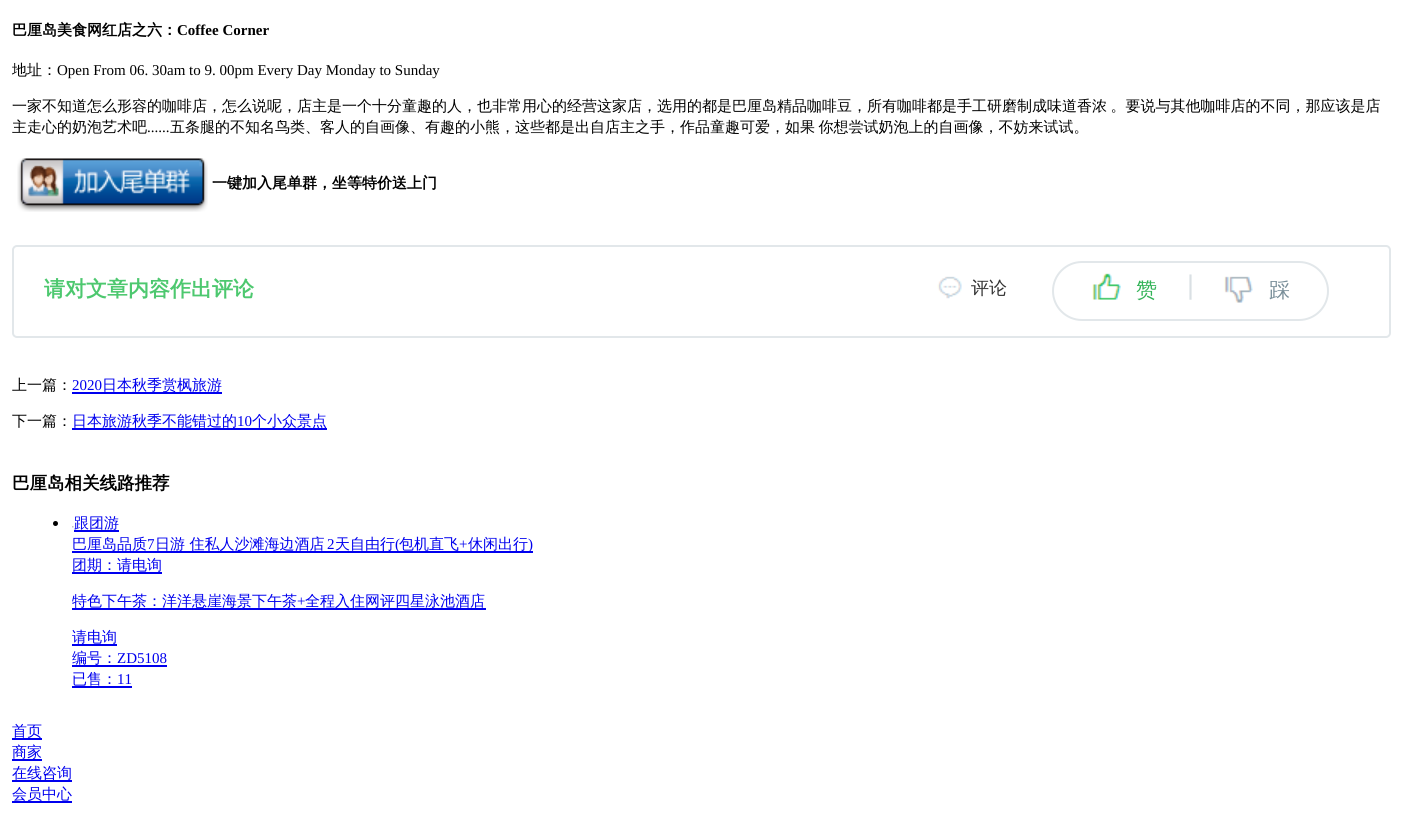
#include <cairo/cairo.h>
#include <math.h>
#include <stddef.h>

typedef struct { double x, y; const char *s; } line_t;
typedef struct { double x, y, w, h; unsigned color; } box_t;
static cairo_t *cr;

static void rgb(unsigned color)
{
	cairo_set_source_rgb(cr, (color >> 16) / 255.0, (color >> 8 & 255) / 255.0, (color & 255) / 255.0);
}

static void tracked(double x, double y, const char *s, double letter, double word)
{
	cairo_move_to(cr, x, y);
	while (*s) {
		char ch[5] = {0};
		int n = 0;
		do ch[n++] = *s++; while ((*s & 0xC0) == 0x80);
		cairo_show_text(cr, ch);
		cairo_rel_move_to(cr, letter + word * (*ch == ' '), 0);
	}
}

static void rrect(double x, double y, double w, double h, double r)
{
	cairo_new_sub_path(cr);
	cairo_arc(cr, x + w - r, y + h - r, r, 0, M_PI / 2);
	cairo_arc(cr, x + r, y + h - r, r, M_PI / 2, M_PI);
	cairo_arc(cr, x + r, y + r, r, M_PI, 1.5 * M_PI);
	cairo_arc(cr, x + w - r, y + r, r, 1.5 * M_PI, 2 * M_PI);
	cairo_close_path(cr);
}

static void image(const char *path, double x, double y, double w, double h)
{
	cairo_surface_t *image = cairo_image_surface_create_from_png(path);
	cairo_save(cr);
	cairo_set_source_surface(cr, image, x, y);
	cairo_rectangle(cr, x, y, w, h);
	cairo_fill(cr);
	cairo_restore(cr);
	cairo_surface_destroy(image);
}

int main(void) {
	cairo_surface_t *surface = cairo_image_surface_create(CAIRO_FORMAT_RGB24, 1402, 817);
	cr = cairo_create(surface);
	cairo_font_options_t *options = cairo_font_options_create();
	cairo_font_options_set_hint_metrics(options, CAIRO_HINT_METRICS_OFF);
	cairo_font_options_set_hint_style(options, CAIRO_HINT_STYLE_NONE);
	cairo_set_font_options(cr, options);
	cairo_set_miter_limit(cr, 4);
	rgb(0xffffff);
	cairo_paint(cr);
	image("img/1.png", 17, 158, 191, 54);
	rrect(13, 246, 1377, 91, 4);
	rgb(0xe2e7ea);
	cairo_stroke(cr);
	image("img/2.png", 937, 276, 25, 23);
	rrect(1053, 262, 275, 58, 29);
	cairo_stroke(cr);
	image("img/3.png", 1092, 273, 29, 27);
	image("img/4.png", 1224, 276, 29, 27);
	rgb(0x0000ee);
	cairo_rectangle(cr, 72, 392, 150, 2);
	cairo_fill(cr);
	cairo_rectangle(cr, 72, 428, 255, 2);
	cairo_fill(cr);
	rgb(0x000000);
	cairo_arc(cr, 55.5, 523.5, 2.5, 0, 2 * M_PI);
	cairo_fill(cr);
	rgb(0x0000ee);
	cairo_rectangle(cr, 74, 530, 45, 2);
	cairo_fill(cr);
	image("img/5.png", 72, 526, 2, 2);
	{
		static const box_t items[] = {
			{72, 551, 461, 2, 0x0000ee},
			{72, 572, 90, 2, 0x0000ee},
			{72, 608, 414, 2, 0x0000ee},
			{72, 644, 45, 2, 0x0000ee},
			{72, 665, 95, 2, 0x0000ee},
			{72, 686, 60, 2, 0x0000ee},
			{12, 738, 30, 2, 0x0000ee},
			{12, 759, 30, 2, 0x0000ee},
			{12, 780, 60, 2, 0x0000ee},
			{12, 801, 60, 2, 0x0000ee},
		};
		for (size_t i = 0; i < sizeof items / sizeof *items; i++) {
			rgb(items[i].color);
			cairo_rectangle(cr, items[i].x, items[i].y, items[i].w, items[i].h);
			cairo_fill(cr);
		}
	}
	cairo_select_font_face(cr, "WenQuanYi Zen Hei", CAIRO_FONT_SLANT_NORMAL, CAIRO_FONT_WEIGHT_BOLD);
	cairo_set_font_size(cr, 15);
	rgb(0x000000);
	cairo_move_to(cr, 12, 35);
	cairo_show_text(cr, "巴厘岛美食网红店之六：");
	cairo_select_font_face(cr, "Liberation Serif", CAIRO_FONT_SLANT_NORMAL, CAIRO_FONT_WEIGHT_BOLD);
	cairo_move_to(cr, 177, 35);
	cairo_show_text(cr, "Coffee Corner");
	cairo_select_font_face(cr, "WenQuanYi Zen Hei Medium", CAIRO_FONT_SLANT_NORMAL, CAIRO_FONT_WEIGHT_NORMAL);
	cairo_move_to(cr, 12, 75);
	cairo_show_text(cr, "地址：");
	cairo_select_font_face(cr, "Liberation Serif", CAIRO_FONT_SLANT_NORMAL, CAIRO_FONT_WEIGHT_NORMAL);
	cairo_move_to(cr, 57, 75);
	cairo_show_text(cr, "Open From 06. 30am to 9. 00pm Every Day Monday to Sunday");
	cairo_select_font_face(cr, "WenQuanYi Zen Hei Medium", CAIRO_FONT_SLANT_NORMAL, CAIRO_FONT_WEIGHT_NORMAL);
	tracked(12, 111, "一家不知道怎么形容的咖啡店，怎么说呢，店主是一个十分童趣的人，也非常用心的经营这家店，选用的都是巴厘岛精品咖啡豆，所有咖啡都是手工研磨制成味道香浓 。要说与其他咖啡店的不同，那应该是店", 0, -1);
	cairo_move_to(cr, 12, 132);
	cairo_show_text(cr, "主走心的奶泡艺术吧");
	cairo_select_font_face(cr, "Liberation Serif", CAIRO_FONT_SLANT_NORMAL, CAIRO_FONT_WEIGHT_NORMAL);
	cairo_move_to(cr, 147, 132);
	cairo_show_text(cr, "......");
	cairo_select_font_face(cr, "WenQuanYi Zen Hei Medium", CAIRO_FONT_SLANT_NORMAL, CAIRO_FONT_WEIGHT_NORMAL);
	tracked(170, 132, "五条腿的不知名鸟类、客人的自画像、有趣的小熊，这些都是出自店主之手，作品童趣可爱，如果 你想尝试奶泡上的自画像，不妨来试试。", 0, -1);
	cairo_select_font_face(cr, "WenQuanYi Zen Hei", CAIRO_FONT_SLANT_NORMAL, CAIRO_FONT_WEIGHT_BOLD);
	cairo_move_to(cr, 212, 188);
	cairo_show_text(cr, "一键加入尾单群，坐等特价送上门");
	cairo_set_font_size(cr, 21);
	rgb(0x4dc86f);
	cairo_move_to(cr, 44, 296);
	cairo_show_text(cr, "请对文章内容作出评论");
	cairo_select_font_face(cr, "WenQuanYi Zen Hei Medium", CAIRO_FONT_SLANT_NORMAL, CAIRO_FONT_WEIGHT_NORMAL);
	cairo_set_font_size(cr, 18);
	rgb(0x333333);
	cairo_move_to(cr, 971, 294);
	cairo_show_text(cr, "评论");
	cairo_set_font_size(cr, 21);
	rgb(0x33b358);
	cairo_move_to(cr, 1136, 297);
	cairo_show_text(cr, "赞");
	cairo_select_font_face(cr, "Liberation Sans", CAIRO_FONT_SLANT_NORMAL, CAIRO_FONT_WEIGHT_NORMAL);
	cairo_set_font_size(cr, 27);
	rgb(0xdae0e4);
	cairo_move_to(cr, 1187, 294);
	cairo_show_text(cr, "|");
	cairo_select_font_face(cr, "WenQuanYi Zen Hei Medium", CAIRO_FONT_SLANT_NORMAL, CAIRO_FONT_WEIGHT_NORMAL);
	cairo_set_font_size(cr, 21);
	rgb(0x7a8f9a);
	cairo_move_to(cr, 1269, 297);
	cairo_show_text(cr, "踩");
	cairo_set_font_size(cr, 15);
	rgb(0x000000);
	cairo_move_to(cr, 12, 390);
	cairo_show_text(cr, "上一篇：");
	cairo_select_font_face(cr, "Liberation Serif", CAIRO_FONT_SLANT_NORMAL, CAIRO_FONT_WEIGHT_NORMAL);
	rgb(0x0000ee);
	cairo_move_to(cr, 72, 390);
	cairo_show_text(cr, "2020");
	cairo_select_font_face(cr, "WenQuanYi Zen Hei Medium", CAIRO_FONT_SLANT_NORMAL, CAIRO_FONT_WEIGHT_NORMAL);
	cairo_move_to(cr, 102, 390);
	cairo_show_text(cr, "日本秋季赏枫旅游");
	rgb(0x000000);
	cairo_move_to(cr, 12, 426);
	cairo_show_text(cr, "下一篇：");
	rgb(0x0000ee);
	cairo_move_to(cr, 72, 426);
	cairo_show_text(cr, "日本旅游秋季不能错过的");
	cairo_select_font_face(cr, "Liberation Serif", CAIRO_FONT_SLANT_NORMAL, CAIRO_FONT_WEIGHT_NORMAL);
	cairo_move_to(cr, 237, 426);
	cairo_show_text(cr, "10");
	cairo_select_font_face(cr, "WenQuanYi Zen Hei Medium", CAIRO_FONT_SLANT_NORMAL, CAIRO_FONT_WEIGHT_NORMAL);
	cairo_move_to(cr, 252, 426);
	cairo_show_text(cr, "个小众景点");
	cairo_select_font_face(cr, "WenQuanYi Zen Hei", CAIRO_FONT_SLANT_NORMAL, CAIRO_FONT_WEIGHT_BOLD);
	cairo_set_font_size(cr, 17.5);
	rgb(0x000000);
	cairo_move_to(cr, 12, 489);
	cairo_show_text(cr, "巴厘岛相关线路推荐");
	cairo_select_font_face(cr, "WenQuanYi Zen Hei Medium", CAIRO_FONT_SLANT_NORMAL, CAIRO_FONT_WEIGHT_NORMAL);
	cairo_set_font_size(cr, 15);
	rgb(0x0000ee);
	cairo_move_to(cr, 74, 528);
	cairo_show_text(cr, "跟团游");
	cairo_move_to(cr, 72, 549);
	cairo_show_text(cr, "巴厘岛品质");
	cairo_select_font_face(cr, "Liberation Serif", CAIRO_FONT_SLANT_NORMAL, CAIRO_FONT_WEIGHT_NORMAL);
	cairo_move_to(cr, 147, 549);
	cairo_show_text(cr, "7");
	cairo_select_font_face(cr, "WenQuanYi Zen Hei Medium", CAIRO_FONT_SLANT_NORMAL, CAIRO_FONT_WEIGHT_NORMAL);
	cairo_move_to(cr, 155, 549);
	cairo_show_text(cr, "日游 住私人沙滩海边酒店");
	cairo_select_font_face(cr, "Liberation Serif", CAIRO_FONT_SLANT_NORMAL, CAIRO_FONT_WEIGHT_NORMAL);
	cairo_move_to(cr, 327, 549);
	cairo_show_text(cr, "2");
	cairo_select_font_face(cr, "WenQuanYi Zen Hei Medium", CAIRO_FONT_SLANT_NORMAL, CAIRO_FONT_WEIGHT_NORMAL);
	cairo_move_to(cr, 335, 549);
	cairo_show_text(cr, "天自由行");
	cairo_select_font_face(cr, "Liberation Serif", CAIRO_FONT_SLANT_NORMAL, CAIRO_FONT_WEIGHT_NORMAL);
	cairo_move_to(cr, 395, 549);
	cairo_show_text(cr, "(");
	cairo_select_font_face(cr, "WenQuanYi Zen Hei Medium", CAIRO_FONT_SLANT_NORMAL, CAIRO_FONT_WEIGHT_NORMAL);
	cairo_move_to(cr, 399, 549);
	cairo_show_text(cr, "包机直飞");
	cairo_select_font_face(cr, "Liberation Serif", CAIRO_FONT_SLANT_NORMAL, CAIRO_FONT_WEIGHT_NORMAL);
	cairo_move_to(cr, 459, 549);
	cairo_show_text(cr, "+");
	cairo_select_font_face(cr, "WenQuanYi Zen Hei Medium", CAIRO_FONT_SLANT_NORMAL, CAIRO_FONT_WEIGHT_NORMAL);
	cairo_move_to(cr, 468, 549);
	cairo_show_text(cr, "休闲出行");
	cairo_select_font_face(cr, "Liberation Serif", CAIRO_FONT_SLANT_NORMAL, CAIRO_FONT_WEIGHT_NORMAL);
	cairo_move_to(cr, 528, 549);
	cairo_show_text(cr, ")");
	cairo_select_font_face(cr, "WenQuanYi Zen Hei Medium", CAIRO_FONT_SLANT_NORMAL, CAIRO_FONT_WEIGHT_NORMAL);
	cairo_move_to(cr, 72, 570);
	cairo_show_text(cr, "团期：请电询");
	cairo_move_to(cr, 72, 606);
	cairo_show_text(cr, "特色下午茶：洋洋悬崖海景下午茶");
	cairo_select_font_face(cr, "Liberation Serif", CAIRO_FONT_SLANT_NORMAL, CAIRO_FONT_WEIGHT_NORMAL);
	cairo_move_to(cr, 297, 606);
	cairo_show_text(cr, "+");
	cairo_select_font_face(cr, "WenQuanYi Zen Hei Medium", CAIRO_FONT_SLANT_NORMAL, CAIRO_FONT_WEIGHT_NORMAL);
	{
		static const line_t items[] = {
			{305, 606, "全程入住网评四星泳池酒店"},
			{72, 642, "请电询"},
			{72, 663, "编号："},
		};
		for (size_t i = 0; i < sizeof items / sizeof *items; i++) {
			cairo_move_to(cr, items[i].x, items[i].y);
			cairo_show_text(cr, items[i].s);
		}
	}
	cairo_select_font_face(cr, "Liberation Serif", CAIRO_FONT_SLANT_NORMAL, CAIRO_FONT_WEIGHT_NORMAL);
	cairo_move_to(cr, 117, 663);
	cairo_show_text(cr, "ZD5108");
	cairo_select_font_face(cr, "WenQuanYi Zen Hei Medium", CAIRO_FONT_SLANT_NORMAL, CAIRO_FONT_WEIGHT_NORMAL);
	cairo_move_to(cr, 72, 684);
	cairo_show_text(cr, "已售：");
	cairo_select_font_face(cr, "Liberation Serif", CAIRO_FONT_SLANT_NORMAL, CAIRO_FONT_WEIGHT_NORMAL);
	cairo_move_to(cr, 117, 684);
	cairo_show_text(cr, "11");
	cairo_select_font_face(cr, "WenQuanYi Zen Hei Medium", CAIRO_FONT_SLANT_NORMAL, CAIRO_FONT_WEIGHT_NORMAL);
	{
		static const line_t items[] = {
			{12, 736, "首页"},
			{12, 757, "商家"},
			{12, 778, "在线咨询"},
			{12, 799, "会员中心"},
		};
		for (size_t i = 0; i < sizeof items / sizeof *items; i++) {
			cairo_move_to(cr, items[i].x, items[i].y);
			cairo_show_text(cr, items[i].s);
		}
	}
	cairo_surface_write_to_png(surface, "page.png");
	cairo_font_options_destroy(options);
	cairo_destroy(cr);
	cairo_surface_destroy(surface);
	return 0;
}
